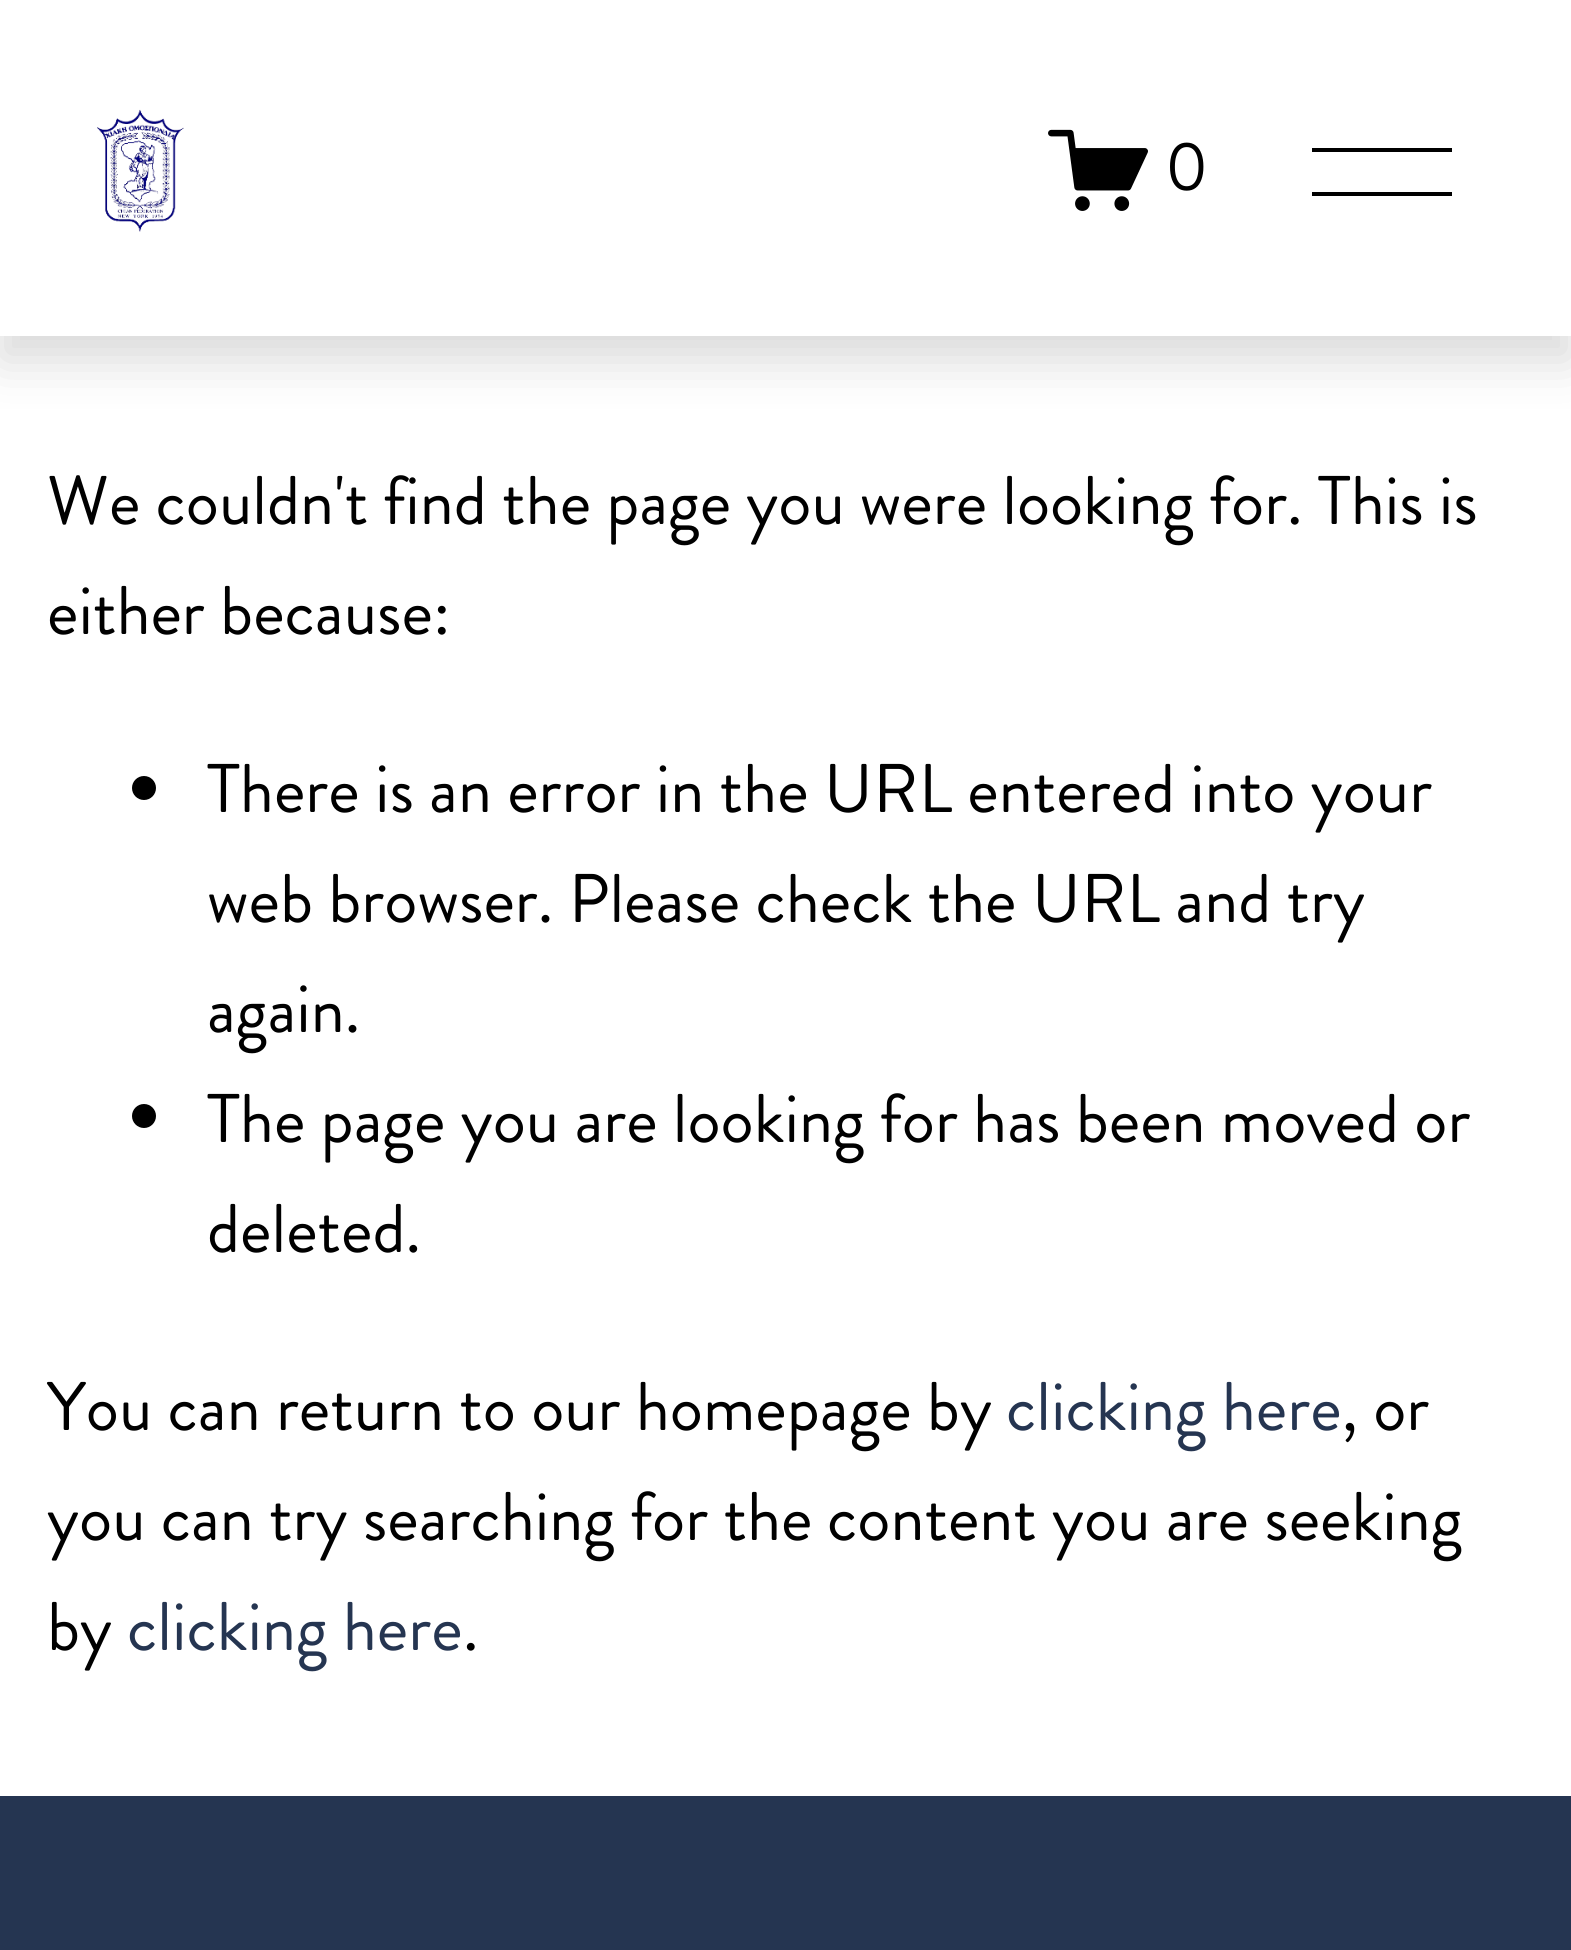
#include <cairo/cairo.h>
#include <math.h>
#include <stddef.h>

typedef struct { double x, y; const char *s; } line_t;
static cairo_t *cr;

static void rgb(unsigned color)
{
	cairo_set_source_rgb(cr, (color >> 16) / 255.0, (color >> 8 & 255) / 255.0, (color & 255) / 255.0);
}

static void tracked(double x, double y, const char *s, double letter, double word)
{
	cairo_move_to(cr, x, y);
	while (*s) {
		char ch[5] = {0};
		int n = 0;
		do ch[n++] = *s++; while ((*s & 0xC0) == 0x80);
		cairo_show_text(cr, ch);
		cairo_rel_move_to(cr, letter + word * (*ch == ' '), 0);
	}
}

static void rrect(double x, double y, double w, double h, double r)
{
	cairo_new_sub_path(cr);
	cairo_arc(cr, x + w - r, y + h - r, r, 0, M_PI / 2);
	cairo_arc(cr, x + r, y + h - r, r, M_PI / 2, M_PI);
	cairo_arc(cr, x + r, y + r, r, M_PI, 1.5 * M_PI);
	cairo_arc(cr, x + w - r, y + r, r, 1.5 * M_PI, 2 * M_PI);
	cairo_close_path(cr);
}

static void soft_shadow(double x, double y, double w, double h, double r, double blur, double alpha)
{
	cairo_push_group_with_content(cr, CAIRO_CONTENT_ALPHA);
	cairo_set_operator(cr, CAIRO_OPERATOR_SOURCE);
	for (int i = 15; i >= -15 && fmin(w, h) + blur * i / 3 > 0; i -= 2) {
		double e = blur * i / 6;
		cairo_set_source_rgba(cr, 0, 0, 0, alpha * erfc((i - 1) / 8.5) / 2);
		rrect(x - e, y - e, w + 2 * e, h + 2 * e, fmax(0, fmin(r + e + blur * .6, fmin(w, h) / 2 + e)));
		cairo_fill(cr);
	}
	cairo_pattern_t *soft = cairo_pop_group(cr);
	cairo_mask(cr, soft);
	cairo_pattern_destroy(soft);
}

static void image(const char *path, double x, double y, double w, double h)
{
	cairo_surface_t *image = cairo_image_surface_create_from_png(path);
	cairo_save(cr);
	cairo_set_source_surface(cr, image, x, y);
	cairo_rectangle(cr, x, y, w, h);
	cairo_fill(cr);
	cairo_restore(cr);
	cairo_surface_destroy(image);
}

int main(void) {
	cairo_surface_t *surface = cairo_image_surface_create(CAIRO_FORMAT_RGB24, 1571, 1950);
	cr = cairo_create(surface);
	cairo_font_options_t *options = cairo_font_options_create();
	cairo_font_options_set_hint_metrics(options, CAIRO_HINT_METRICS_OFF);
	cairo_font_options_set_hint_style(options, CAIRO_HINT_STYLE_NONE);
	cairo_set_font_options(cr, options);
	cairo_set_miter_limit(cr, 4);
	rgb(0xffffff);
	cairo_paint(cr);
	cairo_save(cr);
	cairo_rectangle(cr, 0, 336, 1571, 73);
	cairo_clip(cr);
	rgb(0xd9d9d9);
	soft_shadow(0, 24, 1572, 336, 0, 24, 1);
	cairo_restore(cr);
	image("img/1.png", 97, 109, 87, 123);
	image("img/2.png", 1048, 129, 100, 82);
	rgb(0x000000);
	cairo_rectangle(cr, 1312, 148, 140, 4);
	cairo_fill(cr);
	cairo_rectangle(cr, 1312, 192, 140, 4);
	cairo_fill(cr);
	cairo_arc(cr, 144, 788, 12, 0, 2 * M_PI);
	cairo_fill(cr);
	cairo_arc(cr, 144, 1116, 12, 0, 2 * M_PI);
	cairo_fill(cr);
	rgb(0x253551);
	cairo_rectangle(cr, 0, 1796, 1571, 154);
	cairo_fill(cr);
	cairo_select_font_face(cr, "Brandon Grotesque", CAIRO_FONT_SLANT_NORMAL, CAIRO_FONT_WEIGHT_NORMAL);
	cairo_set_font_size(cr, 68.7);
	rgb(0x000000);
	cairo_move_to(cr, 1165, 190);
	cairo_show_text(cr, "0");
	tracked(47, 524, "We couldn't find the page you were looking for. This is", 0, -0.1);
	{
		static const line_t items[] = {
			{47, 634, "either because:"},
			{207, 812, "There is an error in the URL entered into your"},
			{207, 922, "web browser. Please check the URL and try"},
			{207, 1032, "again."},
			{207, 1142, "The page you are looking for has been moved or"},
			{207, 1252, "deleted."},
			{47, 1430, "You can return to our homepage by"},
		};
		for (size_t i = 0; i < sizeof items / sizeof *items; i++) {
			cairo_move_to(cr, items[i].x, items[i].y);
			cairo_show_text(cr, items[i].s);
		}
	}
	rgb(0x253551);
	cairo_move_to(cr, 1006, 1430);
	cairo_show_text(cr, "clicking here");
	rgb(0x000000);
	{
		static const line_t items[] = {
			{1342, 1430, ", or"},
			{47, 1540, "you can try searching for the"},
			{827, 1540, "content you are seeking"},
			{47, 1650, "by"},
		};
		for (size_t i = 0; i < sizeof items / sizeof *items; i++) {
			cairo_move_to(cr, items[i].x, items[i].y);
			cairo_show_text(cr, items[i].s);
		}
	}
	rgb(0x253551);
	cairo_move_to(cr, 127, 1650);
	cairo_show_text(cr, "clicking here");
	rgb(0x000000);
	cairo_move_to(cr, 463, 1650);
	cairo_show_text(cr, ".");
	cairo_surface_write_to_png(surface, "page.png");
	cairo_font_options_destroy(options);
	cairo_destroy(cr);
	cairo_surface_destroy(surface);
	return 0;
}
